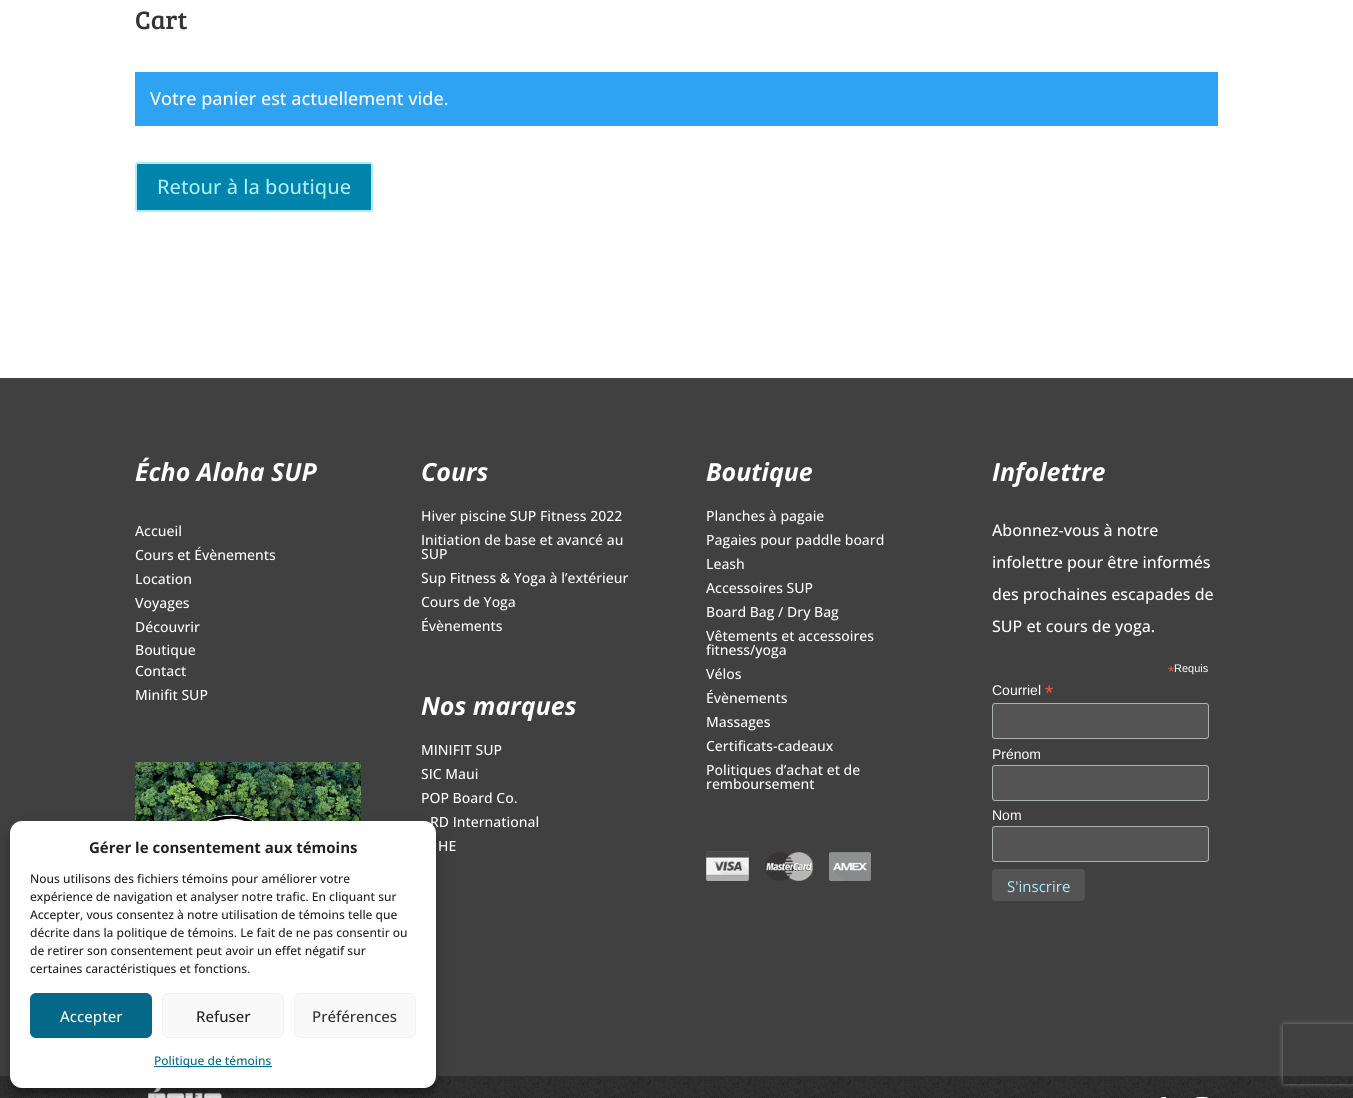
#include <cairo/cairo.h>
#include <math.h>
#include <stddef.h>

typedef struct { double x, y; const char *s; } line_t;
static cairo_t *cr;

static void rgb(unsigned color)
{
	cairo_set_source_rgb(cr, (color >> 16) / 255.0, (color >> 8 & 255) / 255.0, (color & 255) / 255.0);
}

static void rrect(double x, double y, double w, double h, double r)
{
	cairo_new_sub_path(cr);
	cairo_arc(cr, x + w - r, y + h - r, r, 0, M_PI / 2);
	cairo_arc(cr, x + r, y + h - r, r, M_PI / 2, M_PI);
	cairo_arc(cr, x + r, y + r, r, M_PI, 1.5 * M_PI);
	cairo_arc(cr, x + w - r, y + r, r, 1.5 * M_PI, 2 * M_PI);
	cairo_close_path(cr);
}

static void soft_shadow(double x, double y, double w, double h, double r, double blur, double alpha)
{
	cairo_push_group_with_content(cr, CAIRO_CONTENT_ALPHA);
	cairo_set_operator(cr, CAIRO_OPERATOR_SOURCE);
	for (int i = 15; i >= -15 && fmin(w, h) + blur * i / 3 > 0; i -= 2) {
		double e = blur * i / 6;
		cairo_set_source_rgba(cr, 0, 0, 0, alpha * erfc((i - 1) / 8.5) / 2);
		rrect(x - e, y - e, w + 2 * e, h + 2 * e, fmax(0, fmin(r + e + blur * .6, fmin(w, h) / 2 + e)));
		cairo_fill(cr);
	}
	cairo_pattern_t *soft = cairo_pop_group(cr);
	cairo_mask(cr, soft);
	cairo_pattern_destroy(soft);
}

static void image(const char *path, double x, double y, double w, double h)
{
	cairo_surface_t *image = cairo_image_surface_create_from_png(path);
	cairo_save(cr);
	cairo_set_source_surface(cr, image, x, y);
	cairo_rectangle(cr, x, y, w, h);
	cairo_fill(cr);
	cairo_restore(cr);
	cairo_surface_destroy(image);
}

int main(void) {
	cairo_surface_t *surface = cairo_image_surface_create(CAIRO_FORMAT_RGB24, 1353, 1098);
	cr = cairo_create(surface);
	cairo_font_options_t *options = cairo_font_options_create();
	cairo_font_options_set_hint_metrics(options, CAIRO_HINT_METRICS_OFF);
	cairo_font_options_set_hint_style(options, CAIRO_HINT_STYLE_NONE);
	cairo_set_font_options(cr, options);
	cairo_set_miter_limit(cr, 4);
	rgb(0xffffff);
	cairo_paint(cr);
	rgb(0x2ea3f2);
	cairo_rectangle(cr, 135, 72, 1083, 54);
	cairo_fill(cr);
	rgb(0x0084ac);
	rrect(136, 163, 236, 48, 2);
	cairo_fill_preserve(cr);
	rgb(0xacecff);
	cairo_stroke(cr);
	rgb(0x404040);
	cairo_rectangle(cr, 0, 378, 1353, 698);
	cairo_fill(cr);
	image("img/1.png", 135, 762, 226, 59);
	image("img/2.png", 706, 851, 43, 30);
	image("img/3.png", 765, 852, 49, 29);
	image("img/4.png", 829, 852, 42, 29);
	rgb(0x545454);
	rrect(992.5, 703.5, 216, 35, 2.5);
	cairo_fill_preserve(cr);
	rgb(0xabb0b2);
	cairo_set_line_width(cr, 1);
	cairo_stroke(cr);
	rgb(0x545454);
	rrect(992.5, 765.5, 216, 35, 2.5);
	cairo_fill_preserve(cr);
	rgb(0xabb0b2);
	cairo_stroke(cr);
	rgb(0x545454);
	rrect(992.5, 826.5, 216, 35, 2.5);
	cairo_fill_preserve(cr);
	rgb(0xabb0b2);
	cairo_stroke(cr);
	rgb(0x545454);
	rrect(992, 869, 93, 32, 4);
	cairo_fill(cr);
	image("img/5.png", 0, 1076, 1353, 22);
	image("img/6.png", 148, 1088, 75, 10);
	image("img/7.png", 1160, 1097, 6, 1);
	image("img/8.png", 1195, 1097, 14, 1);
	rgb(0x000000);
	soft_shadow(10, 827, 426, 267, 12, 3, 0.23);
	soft_shadow(10, 831, 426, 267, 12, 10, 0.19);
	rgb(0xffffff);
	rrect(10, 821, 426, 267, 12);
	cairo_fill(cr);
	rgb(0x046988);
	rrect(30.5, 993.5, 121, 44, 5.5);
	cairo_fill_preserve(cr);
	cairo_stroke(cr);
	rgb(0xf9f9f9);
	rrect(162.5, 993.5, 121, 44, 5.5);
	cairo_fill_preserve(cr);
	rgb(0xf2f2f2);
	cairo_stroke(cr);
	rgb(0xf9f9f9);
	rrect(294.5, 993.5, 121, 44, 5.5);
	cairo_fill_preserve(cr);
	rgb(0xf2f2f2);
	cairo_stroke(cr);
	rgb(0x046988);
	cairo_rectangle(cr, 154, 1066, 118, 1);
	cairo_fill(cr);
	cairo_save(cr);
	cairo_set_fill_rule(cr, CAIRO_FILL_RULE_EVEN_ODD);
	cairo_new_path(cr);
	cairo_move_to(cr, 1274, 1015);
	cairo_line_to(cr, 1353, 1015);
	cairo_line_to(cr, 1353, 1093);
	cairo_line_to(cr, 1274, 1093);
	cairo_close_path(cr);
	cairo_move_to(cr, 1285, 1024);
	cairo_line_to(cr, 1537, 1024);
	cairo_curve_to(cr, 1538, 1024, 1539, 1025, 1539, 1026);
	cairo_line_to(cr, 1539, 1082);
	cairo_curve_to(cr, 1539, 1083, 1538, 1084, 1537, 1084);
	cairo_line_to(cr, 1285, 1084);
	cairo_curve_to(cr, 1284, 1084, 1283, 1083, 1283, 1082);
	cairo_line_to(cr, 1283, 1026);
	cairo_curve_to(cr, 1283, 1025, 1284, 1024, 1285, 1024);
	cairo_close_path(cr);
	cairo_clip(cr);
	rgb(0x808080);
	soft_shadow(1283, 1024, 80, 60, 2, 2.5, 1);
	cairo_restore(cr);
	cairo_select_font_face(cr, "Bree Serif", CAIRO_FONT_SLANT_NORMAL, CAIRO_FONT_WEIGHT_NORMAL);
	cairo_set_font_size(cr, 26);
	rgb(0x333333);
	cairo_move_to(cr, 135, 29);
	cairo_show_text(cr, "Cart");
	cairo_select_font_face(cr, "Open Sans Medium", CAIRO_FONT_SLANT_NORMAL, CAIRO_FONT_WEIGHT_NORMAL);
	cairo_set_font_size(cr, 18);
	rgb(0xffffff);
	cairo_move_to(cr, 150, 105);
	cairo_show_text(cr, "Votre panier est actuellement vide.");
	cairo_set_font_size(cr, 20);
	rgb(0xacecff);
	cairo_move_to(cr, 157, 194);
	cairo_show_text(cr, "Retour à la boutique");
	cairo_select_font_face(cr, "Open Sans", CAIRO_FONT_SLANT_ITALIC, CAIRO_FONT_WEIGHT_BOLD);
	cairo_set_font_size(cr, 25);
	rgb(0xffffff);
	cairo_move_to(cr, 135, 481);
	cairo_show_text(cr, "Écho Aloha SUP");
	cairo_select_font_face(cr, "Open Sans Medium", CAIRO_FONT_SLANT_NORMAL, CAIRO_FONT_WEIGHT_NORMAL);
	cairo_set_font_size(cr, 14);
	{
		static const line_t items[] = {
			{135, 536, "Accueil"},
			{135, 560, "Cours et Évènements"},
			{135, 584, "Location"},
			{135, 608, "Voyages"},
			{135, 632, "Découvrir"},
			{135, 655, "Boutique"},
			{135, 676, "Contact"},
			{135, 700, "Minifit SUP"},
		};
		for (size_t i = 0; i < sizeof items / sizeof *items; i++) {
			cairo_move_to(cr, items[i].x, items[i].y);
			cairo_show_text(cr, items[i].s);
		}
	}
	cairo_select_font_face(cr, "Open Sans", CAIRO_FONT_SLANT_ITALIC, CAIRO_FONT_WEIGHT_BOLD);
	cairo_set_font_size(cr, 25);
	cairo_move_to(cr, 421, 481);
	cairo_show_text(cr, "Cours");
	cairo_select_font_face(cr, "Open Sans Medium", CAIRO_FONT_SLANT_NORMAL, CAIRO_FONT_WEIGHT_NORMAL);
	cairo_set_font_size(cr, 14);
	{
		static const line_t items[] = {
			{421, 521, "Hiver piscine SUP Fitness 2022"},
			{421, 545, "Initiation de base et avancé au"},
			{421, 559, "SUP"},
			{421, 583, "Sup Fitness & Yoga à l’extérieur"},
			{421, 607, "Cours de Yoga"},
			{421, 631, "Évènements"},
		};
		for (size_t i = 0; i < sizeof items / sizeof *items; i++) {
			cairo_move_to(cr, items[i].x, items[i].y);
			cairo_show_text(cr, items[i].s);
		}
	}
	cairo_select_font_face(cr, "Open Sans", CAIRO_FONT_SLANT_ITALIC, CAIRO_FONT_WEIGHT_BOLD);
	cairo_set_font_size(cr, 25);
	cairo_move_to(cr, 421, 715);
	cairo_show_text(cr, "Nos marques");
	cairo_select_font_face(cr, "Open Sans Medium", CAIRO_FONT_SLANT_NORMAL, CAIRO_FONT_WEIGHT_NORMAL);
	cairo_set_font_size(cr, 14);
	{
		static const line_t items[] = {
			{421, 755, "MINIFIT SUP"},
			{421, 779, "SIC Maui"},
			{421, 803, "POP Board Co."},
			{430, 827, "RD International"},
			{438, 851, "HE"},
		};
		for (size_t i = 0; i < sizeof items / sizeof *items; i++) {
			cairo_move_to(cr, items[i].x, items[i].y);
			cairo_show_text(cr, items[i].s);
		}
	}
	cairo_select_font_face(cr, "Open Sans", CAIRO_FONT_SLANT_ITALIC, CAIRO_FONT_WEIGHT_BOLD);
	cairo_set_font_size(cr, 25);
	cairo_move_to(cr, 706, 481);
	cairo_show_text(cr, "Boutique");
	cairo_select_font_face(cr, "Open Sans Medium", CAIRO_FONT_SLANT_NORMAL, CAIRO_FONT_WEIGHT_NORMAL);
	cairo_set_font_size(cr, 14);
	{
		static const line_t items[] = {
			{706, 521, "Planches à pagaie"},
			{706, 545, "Pagaies pour paddle board"},
			{706, 569, "Leash"},
			{706, 593, "Accessoires SUP"},
			{706, 617, "Board Bag / Dry Bag"},
			{706, 641, "Vêtements et accessoires"},
			{706, 655, "fitness/yoga"},
			{706, 679, "Vélos"},
			{706, 703, "Évènements"},
			{706, 727, "Massages"},
			{706, 751, "Certificats-cadeaux"},
			{706, 775, "Politiques d’achat et de"},
			{706, 789, "remboursement"},
		};
		for (size_t i = 0; i < sizeof items / sizeof *items; i++) {
			cairo_move_to(cr, items[i].x, items[i].y);
			cairo_show_text(cr, items[i].s);
		}
	}
	cairo_select_font_face(cr, "Open Sans", CAIRO_FONT_SLANT_ITALIC, CAIRO_FONT_WEIGHT_BOLD);
	cairo_set_font_size(cr, 25);
	cairo_move_to(cr, 992, 481);
	cairo_show_text(cr, "Infolettre");
	cairo_select_font_face(cr, "Open Sans Medium", CAIRO_FONT_SLANT_NORMAL, CAIRO_FONT_WEIGHT_NORMAL);
	cairo_set_font_size(cr, 16);
	{
		static const line_t items[] = {
			{992, 536, "Abonnez-vous à notre"},
			{992, 568, "infolettre pour être informés"},
			{992, 600, "des prochaines escapades de"},
			{992, 632, "SUP et cours de yoga."},
		};
		for (size_t i = 0; i < sizeof items / sizeof *items; i++) {
			cairo_move_to(cr, items[i].x, items[i].y);
			cairo_show_text(cr, items[i].s);
		}
	}
	cairo_select_font_face(cr, "Liberation Sans", CAIRO_FONT_SLANT_NORMAL, CAIRO_FONT_WEIGHT_NORMAL);
	rgb(0xe85c41);
	cairo_move_to(cr, 1168, 677);
	cairo_show_text(cr, "*");
	cairo_set_font_size(cr, 11);
	rgb(0xffffff);
	cairo_move_to(cr, 1174, 672);
	cairo_show_text(cr, "Requis");
	cairo_set_font_size(cr, 14);
	cairo_move_to(cr, 992, 695);
	cairo_show_text(cr, "Courriel");
	cairo_set_font_size(cr, 21);
	rgb(0xe85c41);
	cairo_move_to(cr, 1045, 700);
	cairo_show_text(cr, "*");
	cairo_set_font_size(cr, 14);
	rgb(0xffffff);
	cairo_move_to(cr, 992, 759);
	cairo_show_text(cr, "Prénom");
	cairo_move_to(cr, 992, 820);
	cairo_show_text(cr, "Nom");
	cairo_select_font_face(cr, "Open Sans", CAIRO_FONT_SLANT_NORMAL, CAIRO_FONT_WEIGHT_NORMAL);
	cairo_set_font_size(cr, 15);
	rgb(0xacecff);
	cairo_move_to(cr, 1007, 892);
	cairo_show_text(cr, "S'inscrire");
	cairo_select_font_face(cr, "Open Sans", CAIRO_FONT_SLANT_NORMAL, CAIRO_FONT_WEIGHT_BOLD);
	rgb(0x222222);
	cairo_move_to(cr, 89, 853);
	cairo_show_text(cr, "Gérer le consentement aux témoins");
	cairo_select_font_face(cr, "Open Sans Medium", CAIRO_FONT_SLANT_NORMAL, CAIRO_FONT_WEIGHT_NORMAL);
	cairo_set_font_size(cr, 12);
	{
		static const line_t items[] = {
			{30, 883, "Nous utilisons des fichiers témoins pour améliorer votre"},
			{30, 901, "expérience de navigation et analyser notre trafic. En cliquant sur"},
			{30, 919, "Accepter, vous consentez à notre utilisation de témoins telle que"},
			{30, 937, "décrite dans la politique de témoins. Le fait de ne pas consentir ou"},
			{30, 955, "de retirer son consentement peut avoir un effet négatif sur"},
			{30, 973, "certaines caractéristiques et fonctions."},
		};
		for (size_t i = 0; i < sizeof items / sizeof *items; i++) {
			cairo_move_to(cr, items[i].x, items[i].y);
			cairo_show_text(cr, items[i].s);
		}
	}
	cairo_set_font_size(cr, 15);
	rgb(0xffffff);
	cairo_move_to(cr, 60, 1022);
	cairo_show_text(cr, "Accepter");
	rgb(0x222222);
	cairo_move_to(cr, 196, 1022);
	cairo_show_text(cr, "Refuser");
	rgb(0x333333);
	cairo_move_to(cr, 312, 1022);
	cairo_show_text(cr, "Préférences");
	cairo_set_font_size(cr, 12);
	rgb(0x046988);
	cairo_move_to(cr, 154, 1065);
	cairo_show_text(cr, "Politique de témoins");
	cairo_surface_write_to_png(surface, "page.png");
	cairo_font_options_destroy(options);
	cairo_destroy(cr);
	cairo_surface_destroy(surface);
	return 0;
}
